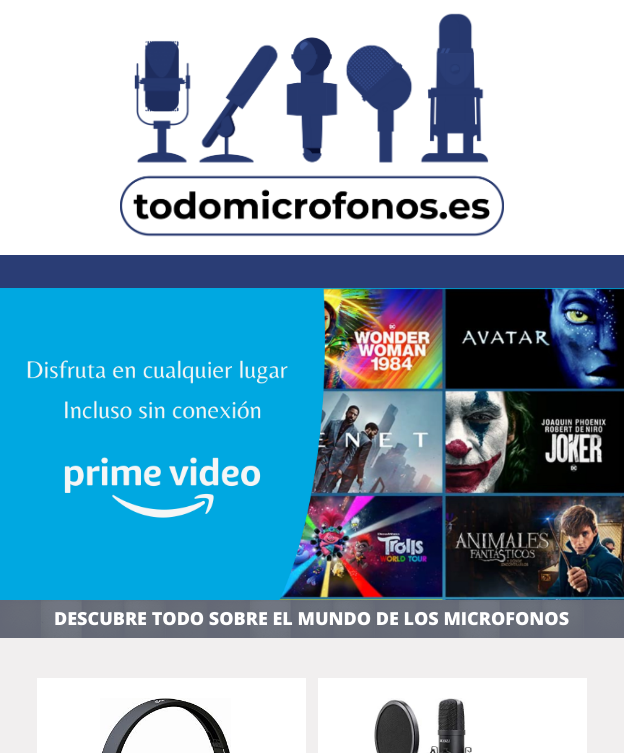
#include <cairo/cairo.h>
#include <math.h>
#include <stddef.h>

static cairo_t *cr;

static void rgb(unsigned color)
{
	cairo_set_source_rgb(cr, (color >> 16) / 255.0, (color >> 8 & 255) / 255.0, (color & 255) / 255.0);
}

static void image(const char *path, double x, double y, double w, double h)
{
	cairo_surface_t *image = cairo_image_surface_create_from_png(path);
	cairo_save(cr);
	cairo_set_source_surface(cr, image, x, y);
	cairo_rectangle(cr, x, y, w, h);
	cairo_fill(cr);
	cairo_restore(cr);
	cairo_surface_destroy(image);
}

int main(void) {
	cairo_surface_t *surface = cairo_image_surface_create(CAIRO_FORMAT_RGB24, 624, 753);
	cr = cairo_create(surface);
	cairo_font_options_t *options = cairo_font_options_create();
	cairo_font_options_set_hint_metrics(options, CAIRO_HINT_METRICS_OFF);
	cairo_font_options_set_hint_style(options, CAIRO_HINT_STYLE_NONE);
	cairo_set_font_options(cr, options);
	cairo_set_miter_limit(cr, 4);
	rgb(0xf1efef);
	cairo_paint(cr);
	rgb(0xffffff);
	cairo_rectangle(cr, 0, 0, 624, 255);
	cairo_fill(cr);
	image("img/1.png", 120, 13, 384, 224);
	rgb(0x2a3d75);
	cairo_rectangle(cr, 0, 255, 624, 33);
	cairo_fill(cr);
	image("img/2.png", 0, 288, 624, 312);
	rgb(0x6a6e7d);
	cairo_rectangle(cr, 0, 600, 624, 38);
	cairo_fill(cr);
	image("img/3.png", 0, 600, 624, 38);
	rgb(0xffffff);
	cairo_rectangle(cr, 37, 678, 269, 75);
	cairo_fill(cr);
	image("img/4.png", 100, 698, 131, 55);
	cairo_rectangle(cr, 318, 678, 269, 75);
	cairo_fill(cr);
	image("img/5.png", 374, 698, 98, 55);
	cairo_select_font_face(cr, "Open Sans ExtraBold", CAIRO_FONT_SLANT_NORMAL, CAIRO_FONT_WEIGHT_NORMAL);
	cairo_set_font_size(cr, 18);
	cairo_move_to(cr, 54, 625);
	cairo_show_text(cr, "DESCUBRE TODO SOBRE EL MUNDO DE LOS MICROFONOS");
	cairo_surface_write_to_png(surface, "page.png");
	cairo_font_options_destroy(options);
	cairo_destroy(cr);
	cairo_surface_destroy(surface);
	return 0;
}
